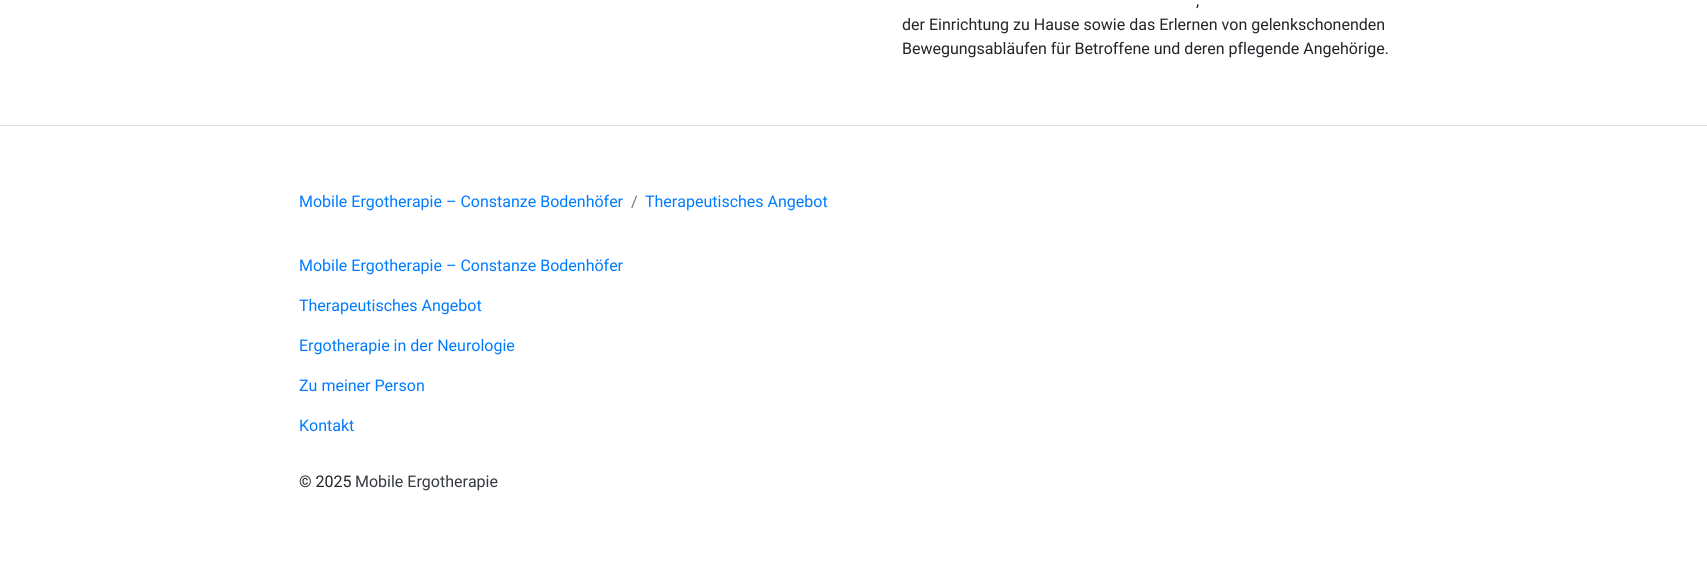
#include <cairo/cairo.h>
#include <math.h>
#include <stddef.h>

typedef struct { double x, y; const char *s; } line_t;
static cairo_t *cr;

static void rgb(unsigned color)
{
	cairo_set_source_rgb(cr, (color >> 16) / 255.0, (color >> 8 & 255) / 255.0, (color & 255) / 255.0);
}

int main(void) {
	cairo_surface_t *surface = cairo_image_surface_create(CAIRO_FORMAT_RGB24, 1707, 566);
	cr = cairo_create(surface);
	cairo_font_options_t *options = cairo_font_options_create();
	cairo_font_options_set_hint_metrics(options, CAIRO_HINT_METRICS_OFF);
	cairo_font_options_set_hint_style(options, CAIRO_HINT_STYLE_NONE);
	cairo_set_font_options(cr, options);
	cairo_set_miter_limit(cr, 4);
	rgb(0xffffff);
	cairo_paint(cr);
	rgb(0xdee2e6);
	cairo_rectangle(cr, 0, 125, 1707, 1);
	cairo_fill(cr);
	cairo_select_font_face(cr, "Roboto", CAIRO_FONT_SLANT_NORMAL, CAIRO_FONT_WEIGHT_NORMAL);
	cairo_set_font_size(cr, 16);
	rgb(0x212529);
	{
		static const line_t items[] = {
			{1196, 6, ","},
			{902, 30, "der Einrichtung zu Hause sowie das Erlernen von gelenkschonenden"},
			{902, 54, "Bewegungsabläufen für Betroffene und deren pflegende Angehörige."},
		};
		for (size_t i = 0; i < sizeof items / sizeof *items; i++) {
			cairo_move_to(cr, items[i].x, items[i].y);
			cairo_show_text(cr, items[i].s);
		}
	}
	rgb(0x007bff);
	cairo_move_to(cr, 299, 207);
	cairo_show_text(cr, "Mobile Ergotherapie – Constanze Bodenhöfer");
	rgb(0x6c757d);
	cairo_move_to(cr, 631, 207);
	cairo_show_text(cr, "/");
	rgb(0x007bff);
	{
		static const line_t items[] = {
			{645, 207, "Therapeutisches Angebot"},
			{299, 271, "Mobile Ergotherapie – Constanze Bodenhöfer"},
			{299, 311, "Therapeutisches Angebot"},
			{299, 351, "Ergotherapie in der Neurologie"},
			{299, 391, "Zu meiner Person"},
			{299, 431, "Kontakt"},
		};
		for (size_t i = 0; i < sizeof items / sizeof *items; i++) {
			cairo_move_to(cr, items[i].x, items[i].y);
			cairo_show_text(cr, items[i].s);
		}
	}
	rgb(0x212529);
	cairo_move_to(cr, 299, 487);
	cairo_show_text(cr, "© 2025");
	rgb(0x343a40);
	cairo_move_to(cr, 355, 487);
	cairo_show_text(cr, "Mobile Ergotherapie");
	cairo_surface_write_to_png(surface, "page.png");
	cairo_font_options_destroy(options);
	cairo_destroy(cr);
	cairo_surface_destroy(surface);
	return 0;
}
